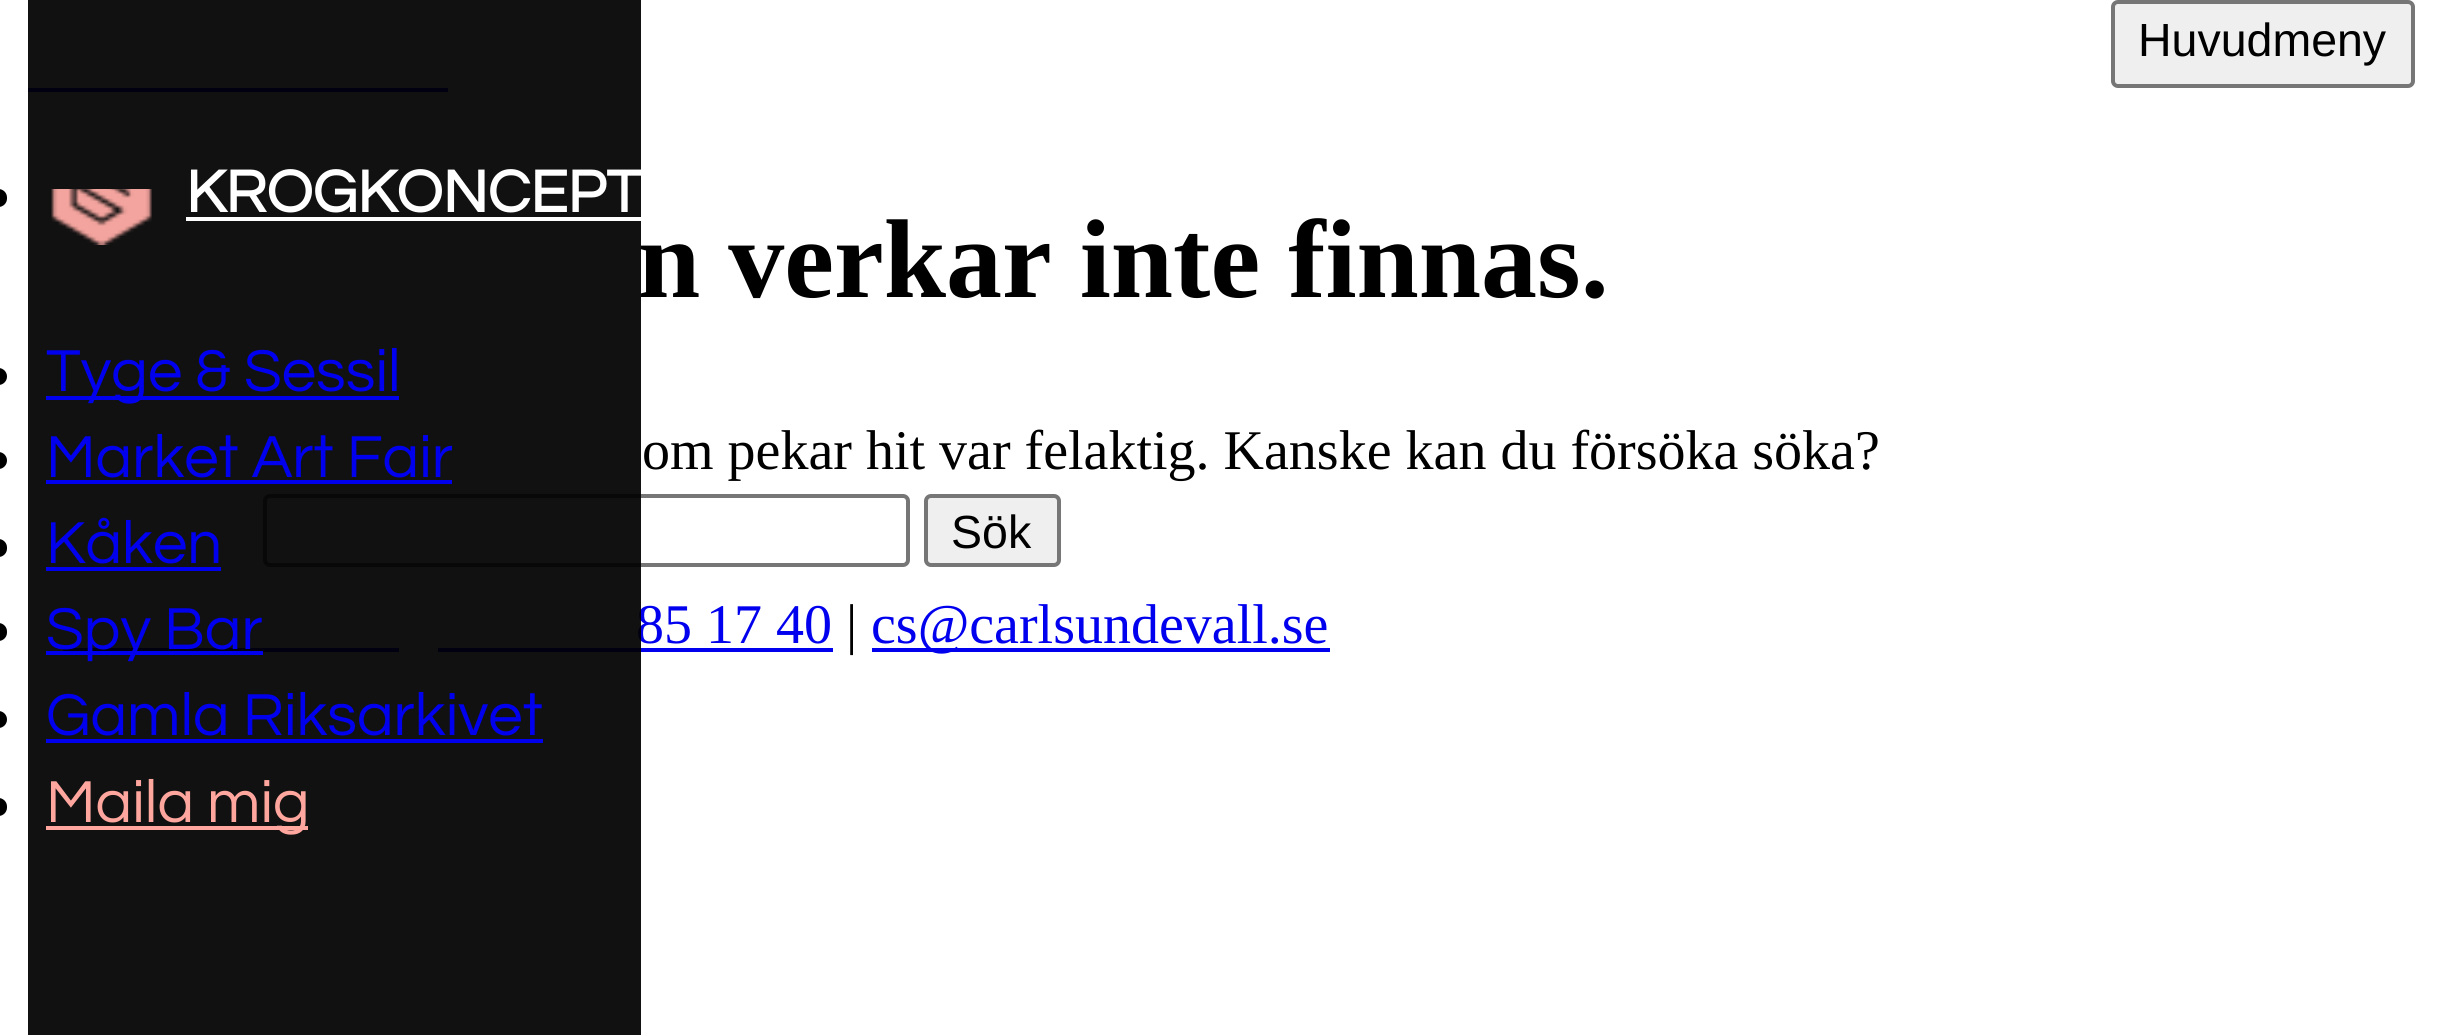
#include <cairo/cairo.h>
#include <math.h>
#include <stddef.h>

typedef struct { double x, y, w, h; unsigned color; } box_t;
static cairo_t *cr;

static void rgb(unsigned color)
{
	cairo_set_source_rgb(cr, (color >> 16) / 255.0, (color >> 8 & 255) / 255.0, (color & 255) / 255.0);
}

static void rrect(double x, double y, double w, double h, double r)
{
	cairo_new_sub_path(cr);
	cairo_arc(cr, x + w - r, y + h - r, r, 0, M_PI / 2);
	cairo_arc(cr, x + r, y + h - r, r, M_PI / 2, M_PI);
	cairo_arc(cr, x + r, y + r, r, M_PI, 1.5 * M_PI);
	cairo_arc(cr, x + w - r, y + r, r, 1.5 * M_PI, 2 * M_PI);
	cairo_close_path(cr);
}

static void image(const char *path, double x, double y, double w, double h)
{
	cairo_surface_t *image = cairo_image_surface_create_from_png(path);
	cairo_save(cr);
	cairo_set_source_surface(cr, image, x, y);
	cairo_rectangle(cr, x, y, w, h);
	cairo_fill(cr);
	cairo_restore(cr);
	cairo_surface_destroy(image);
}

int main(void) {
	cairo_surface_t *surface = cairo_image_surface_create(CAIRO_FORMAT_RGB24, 2447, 1035);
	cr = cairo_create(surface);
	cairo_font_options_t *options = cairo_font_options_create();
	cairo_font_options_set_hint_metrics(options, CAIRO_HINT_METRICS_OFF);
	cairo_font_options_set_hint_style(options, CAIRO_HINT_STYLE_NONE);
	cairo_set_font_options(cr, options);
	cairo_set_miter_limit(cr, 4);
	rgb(0xffffff);
	cairo_paint(cr);
	rgb(0xefefef);
	rrect(2113, 2, 300, 84, 5);
	cairo_fill_preserve(cr);
	rgb(0x767676);
	cairo_set_line_width(cr, 4);
	cairo_stroke(cr);
	rgb(0x000000);
	rrect(-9, 189, 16, 18, 8.5);
	cairo_fill(cr);
	rrect(-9, 368, 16, 17, 8.5);
	cairo_fill(cr);
	rrect(-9, 452, 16, 17, 8.5);
	cairo_fill(cr);
	rrect(-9, 539, 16, 18, 8.5);
	cairo_fill(cr);
	rrect(-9, 623, 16, 18, 8.5);
	cairo_fill(cr);
	rrect(-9, 711, 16, 17, 8.5);
	cairo_fill(cr);
	rrect(-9, 798, 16, 18, 8.5);
	cairo_fill(cr);
	rgb(0x0000ee);
	cairo_rectangle(cr, 28, 88, 420, 4);
	cairo_fill(cr);
	rrect(265, 496, 643, 69, 5);
	rgb(0x767676);
	cairo_stroke(cr);
	rgb(0xefefef);
	rrect(926, 496, 133, 69, 5);
	cairo_fill_preserve(cr);
	rgb(0x767676);
	cairo_stroke(cr);
	{
		static const box_t items[] = {
			{438, 648, 395, 4, 0x0000ee},
			{872, 648, 458, 4, 0x0000ee},
			{63, 648, 336, 4, 0x0000ee},
		};
		for (size_t i = 0; i < sizeof items / sizeof *items; i++) {
			rgb(items[i].color);
			cairo_rectangle(cr, items[i].x, items[i].y, items[i].w, items[i].h);
			cairo_fill(cr);
		}
	}
	cairo_select_font_face(cr, "Liberation Sans", CAIRO_FONT_SLANT_NORMAL, CAIRO_FONT_WEIGHT_NORMAL);
	cairo_set_font_size(cr, 46.5);
	rgb(0x000000);
	cairo_move_to(cr, 2138, 56);
	cairo_show_text(cr, "Huvudmeny");
	cairo_select_font_face(cr, "Liberation Serif", CAIRO_FONT_SLANT_NORMAL, CAIRO_FONT_WEIGHT_BOLD);
	cairo_set_font_size(cr, 112);
	cairo_move_to(cr, 638, 297);
	cairo_show_text(cr, "n verkar inte finnas.");
	cairo_select_font_face(cr, "Liberation Serif", CAIRO_FONT_SLANT_NORMAL, CAIRO_FONT_WEIGHT_NORMAL);
	cairo_set_font_size(cr, 56);
	cairo_move_to(cr, 642, 469);
	cairo_show_text(cr, "om pekar hit var felaktig. Kanske kan du försöka söka?");
	cairo_select_font_face(cr, "Liberation Sans", CAIRO_FONT_SLANT_NORMAL, CAIRO_FONT_WEIGHT_NORMAL);
	cairo_set_font_size(cr, 46.5);
	cairo_move_to(cr, 951, 548);
	cairo_show_text(cr, "Sök");
	cairo_select_font_face(cr, "Liberation Serif", CAIRO_FONT_SLANT_NORMAL, CAIRO_FONT_WEIGHT_NORMAL);
	cairo_set_font_size(cr, 56);
	rgb(0x0000ee);
	cairo_move_to(cr, 636, 643);
	cairo_show_text(cr, "85 17 40");
	cairo_set_source_rgba(cr, 0, 0, 0, 0.93);
	cairo_rectangle(cr, 28, 0, 613, 1035);
	cairo_fill(cr);
	rgb(0xffa69e);
	cairo_rectangle(cr, 46, 826, 262, 4);
	cairo_fill(cr);
	cairo_select_font_face(cr, "Questrial", CAIRO_FONT_SLANT_NORMAL, CAIRO_FONT_WEIGHT_NORMAL);
	cairo_set_font_size(cr, 61.5);
	cairo_move_to(cr, 46, 822);
	cairo_show_text(cr, "Maila mig");
	rgb(0x0000ee);
	cairo_move_to(cr, 46, 735);
	cairo_show_text(cr, "Gamla Riksarkivet");
	cairo_rectangle(cr, 46, 739, 497, 4);
	cairo_fill(cr);
	cairo_rectangle(cr, 46, 651, 217, 4);
	cairo_fill(cr);
	cairo_move_to(cr, 46, 649);
	cairo_show_text(cr, "Spy Bar");
	cairo_move_to(cr, 46, 563);
	cairo_show_text(cr, "Kåken");
	cairo_rectangle(cr, 46, 567, 175, 4);
	cairo_fill(cr);
	cairo_move_to(cr, 46, 477);
	cairo_show_text(cr, "Market Art Fair");
	cairo_rectangle(cr, 46, 480, 406, 4);
	cairo_fill(cr);
	cairo_rectangle(cr, 46, 396, 353, 4);
	cairo_fill(cr);
	cairo_move_to(cr, 46, 391);
	cairo_show_text(cr, "Tyge & Sessil");
	cairo_select_font_face(cr, "Questrial", CAIRO_FONT_SLANT_NORMAL, CAIRO_FONT_WEIGHT_BOLD);
	rgb(0xffffff);
	cairo_move_to(cr, 186, 212);
	cairo_show_text(cr, "KROGKONCEPT");
	cairo_rectangle(cr, 186, 217, 455, 4);
	cairo_fill(cr);
	image("img/1.png", 51, 189, 101, 56);
	cairo_select_font_face(cr, "Liberation Serif", CAIRO_FONT_SLANT_NORMAL, CAIRO_FONT_WEIGHT_NORMAL);
	cairo_set_font_size(cr, 56);
	rgb(0x000000);
	cairo_move_to(cr, 846, 643);
	cairo_show_text(cr, "|");
	rgb(0x0000ee);
	cairo_move_to(cr, 871, 643);
	cairo_show_text(cr, "cs@carlsundevall.se");
	cairo_surface_write_to_png(surface, "page.png");
	cairo_font_options_destroy(options);
	cairo_destroy(cr);
	cairo_surface_destroy(surface);
	return 0;
}
